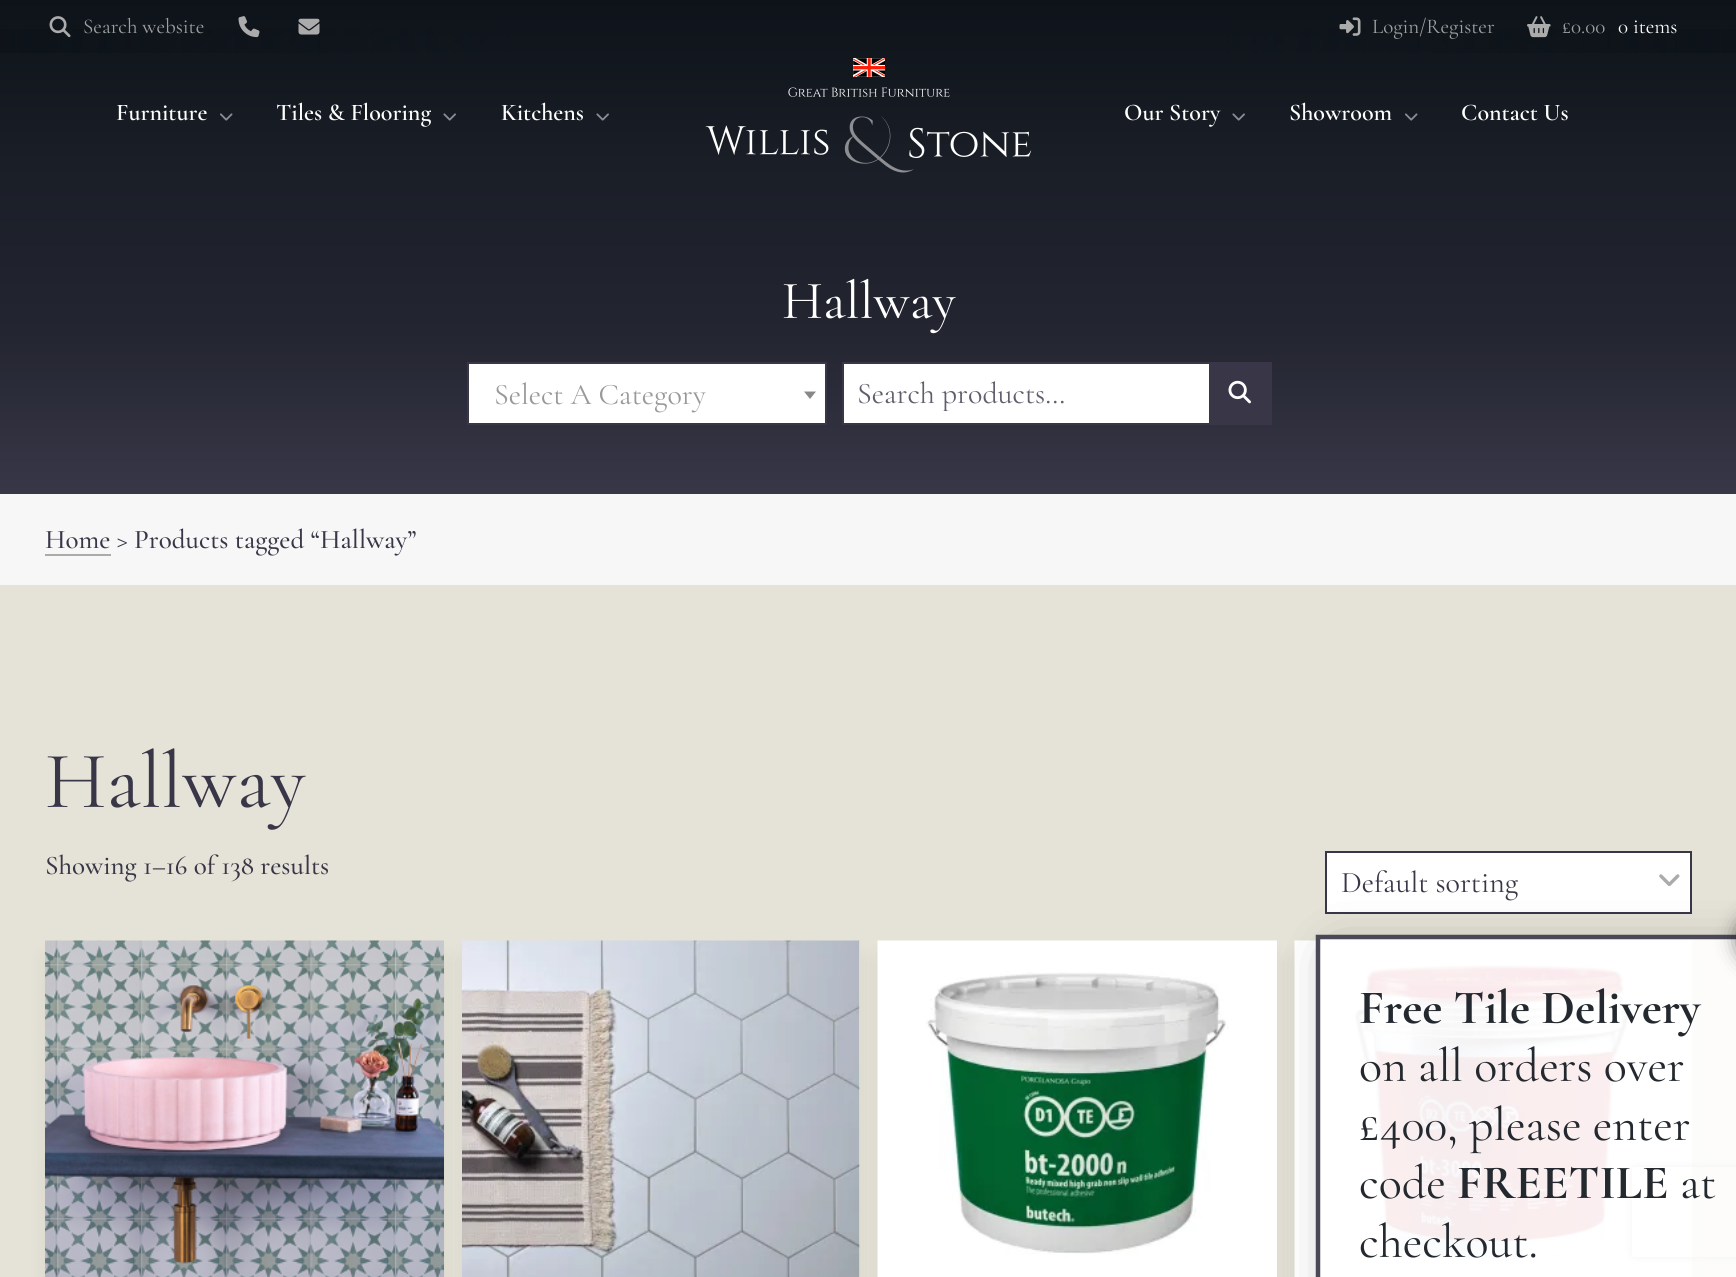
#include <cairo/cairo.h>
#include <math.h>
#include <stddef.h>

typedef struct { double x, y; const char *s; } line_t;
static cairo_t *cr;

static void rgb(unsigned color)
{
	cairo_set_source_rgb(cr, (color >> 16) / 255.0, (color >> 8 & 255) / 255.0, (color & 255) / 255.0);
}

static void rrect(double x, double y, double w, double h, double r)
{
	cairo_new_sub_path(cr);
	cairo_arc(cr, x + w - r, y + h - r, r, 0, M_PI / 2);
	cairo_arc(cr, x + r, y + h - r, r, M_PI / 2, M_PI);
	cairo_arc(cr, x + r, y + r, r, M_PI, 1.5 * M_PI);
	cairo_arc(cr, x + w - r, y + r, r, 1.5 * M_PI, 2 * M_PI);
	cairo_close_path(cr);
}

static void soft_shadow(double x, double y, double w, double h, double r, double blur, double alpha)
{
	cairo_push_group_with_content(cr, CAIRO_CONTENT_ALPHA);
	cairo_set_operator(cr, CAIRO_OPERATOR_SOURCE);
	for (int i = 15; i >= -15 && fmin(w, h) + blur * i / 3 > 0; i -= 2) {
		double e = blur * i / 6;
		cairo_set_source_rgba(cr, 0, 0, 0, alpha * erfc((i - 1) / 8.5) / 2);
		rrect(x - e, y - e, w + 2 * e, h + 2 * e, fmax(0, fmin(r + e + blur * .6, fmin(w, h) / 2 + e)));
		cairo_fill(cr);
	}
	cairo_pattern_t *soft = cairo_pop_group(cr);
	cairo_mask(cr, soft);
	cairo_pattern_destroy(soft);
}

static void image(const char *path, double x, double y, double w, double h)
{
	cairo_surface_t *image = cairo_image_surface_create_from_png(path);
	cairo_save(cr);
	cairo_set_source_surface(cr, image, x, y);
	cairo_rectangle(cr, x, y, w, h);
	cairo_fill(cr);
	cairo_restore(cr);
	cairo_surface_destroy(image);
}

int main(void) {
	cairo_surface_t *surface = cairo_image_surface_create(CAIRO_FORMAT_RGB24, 1736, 1277);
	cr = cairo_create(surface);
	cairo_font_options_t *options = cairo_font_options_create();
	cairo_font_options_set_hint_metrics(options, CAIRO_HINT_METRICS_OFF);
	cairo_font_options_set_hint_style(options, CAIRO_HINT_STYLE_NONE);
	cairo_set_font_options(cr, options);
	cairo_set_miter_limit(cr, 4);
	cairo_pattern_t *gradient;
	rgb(0xf7f7f7);
	cairo_paint(cr);
	gradient = cairo_pattern_create_linear(869, 0, 869, 494);
	cairo_pattern_add_color_stop_rgba(gradient, 0, 0.051, 0.075, 0.098, 1);
	cairo_pattern_add_color_stop_rgba(gradient, 0.33, 0.102, 0.118, 0.153, 1);
	cairo_pattern_add_color_stop_rgba(gradient, 0.67, 0.137, 0.145, 0.188, 1);
	cairo_pattern_add_color_stop_rgba(gradient, 1, 0.22, 0.216, 0.282, 1);
	cairo_set_source(cr, gradient);
	cairo_pattern_destroy(gradient);
	cairo_rectangle(cr, 0, 0, 1736, 494);
	cairo_fill(cr);
	gradient = cairo_pattern_create_linear(0, 26, 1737, 26);
	cairo_pattern_add_color_stop_rgba(gradient, 0, 0.051, 0.075, 0.098, 1);
	cairo_pattern_add_color_stop_rgba(gradient, 0.3, 0.051, 0.075, 0.098, 0);
	cairo_pattern_add_color_stop_rgba(gradient, 0.7, 0.051, 0.075, 0.098, 0);
	cairo_pattern_add_color_stop_rgba(gradient, 1, 0.051, 0.075, 0.098, 1);
	cairo_set_source(cr, gradient);
	cairo_pattern_destroy(gradient);
	cairo_rectangle(cr, 0, 29, 1736, 24);
	cairo_fill(cr);
	image("img/1.png", 49, 16, 22, 22);
	image("img/2.png", 238, 16, 22, 22);
	image("img/3.png", 298, 18, 22, 17);
	image("img/4.png", 1339, 17, 22, 19);
	image("img/5.png", 1527, 16, 24, 22);
	image("img/6.png", 705, 58, 327, 115);
	image("img/7.png", 220, 113, 13, 8);
	image("img/8.png", 443, 113, 13, 8);
	image("img/8.png", 596, 113, 13, 8);
	image("img/8.png", 1232, 113, 13, 8);
	image("img/7.png", 1405, 113, 13, 8);
	rgb(0xffffff);
	cairo_rectangle(cr, 468, 363, 358, 61);
	cairo_fill_preserve(cr);
	rgb(0x393647);
	cairo_stroke(cr);
	rgb(0x888888);
	cairo_new_path(cr);
	cairo_move_to(cr, 804, 391.5);
	cairo_line_to(cr, 816, 391.5);
	cairo_line_to(cr, 810, 399);
	cairo_close_path(cr);
	cairo_fill(cr);
	rgb(0xffffff);
	cairo_rectangle(cr, 844, 364, 365, 59);
	cairo_fill(cr);
	cairo_rectangle(cr, 843, 363, 428, 61);
	rgb(0x393647);
	cairo_stroke(cr);
	cairo_rectangle(cr, 1209, 364, 61, 59);
	cairo_fill(cr);
	image("img/9.png", 1228, 380, 23, 24);
	rgb(0xababab);
	cairo_rectangle(cr, 45, 554, 66, 2);
	cairo_fill(cr);
	rgb(0xe5e3d7);
	cairo_rectangle(cr, 0, 585, 1736, 692);
	cairo_fill(cr);
	rgb(0xffffff);
	cairo_rectangle(cr, 1326, 852, 365, 61);
	cairo_fill_preserve(cr);
	rgb(0x393647);
	cairo_stroke(cr);
	image("img/10.png", 1659, 874, 21, 13);
	rgb(0x000000);
	soft_shadow(50, 960, 390, 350, 0, 11, 0.1);
	image("img/11.png", 45, 940, 399, 337);
	soft_shadow(467, 960, 388, 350, 0, 11, 0.1);
	rgb(0xffffff);
	cairo_rectangle(cr, 859, 941, 1, 336);
	cairo_fill(cr);
	image("img/12.png", 462, 940, 398, 337);
	rgb(0x000000);
	soft_shadow(882, 960, 390, 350, 0, 11, 0.1);
	rgb(0xffffff);
	cairo_rectangle(cr, 1276, 941, 1, 336);
	cairo_fill(cr);
	image("img/13.png", 877, 940, 400, 337);
	rgb(0x000000);
	soft_shadow(1299, 960, 389, 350, 0, 11, 0.1);
	image("img/14.png", 1294, 940, 398, 337);
	cairo_save(cr);
	cairo_set_fill_rule(cr, CAIRO_FILL_RULE_EVEN_ODD);
	cairo_new_path(cr);
	cairo_move_to(cr, 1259, 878);
	cairo_line_to(cr, 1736, 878);
	cairo_line_to(cr, 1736, 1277);
	cairo_line_to(cr, 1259, 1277);
	cairo_close_path(cr);
	cairo_move_to(cr, 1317.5, 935);
	cairo_line_to(cr, 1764.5, 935);
	cairo_curve_to(cr, 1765.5, 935, 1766, 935.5, 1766, 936.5);
	cairo_line_to(cr, 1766, 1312.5);
	cairo_curve_to(cr, 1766, 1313.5, 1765.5, 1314, 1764.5, 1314);
	cairo_line_to(cr, 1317.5, 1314);
	cairo_curve_to(cr, 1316.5, 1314, 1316, 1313.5, 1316, 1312.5);
	cairo_line_to(cr, 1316, 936.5);
	cairo_curve_to(cr, 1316, 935.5, 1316.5, 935, 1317.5, 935);
	cairo_close_path(cr);
	cairo_clip(cr);
	rgb(0x020202);
	soft_shadow(1338, 957, 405, 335, 0, 26, 0.38);
	cairo_restore(cr);
	cairo_save(cr);
	cairo_set_fill_rule(cr, CAIRO_FILL_RULE_EVEN_ODD);
	cairo_new_path(cr);
	cairo_move_to(cr, 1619, 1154);
	cairo_line_to(cr, 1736, 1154);
	cairo_line_to(cr, 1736, 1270);
	cairo_line_to(cr, 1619, 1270);
	cairo_close_path(cr);
	cairo_move_to(cr, 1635, 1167);
	cairo_line_to(cr, 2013, 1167);
	cairo_curve_to(cr, 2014.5, 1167, 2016, 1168.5, 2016, 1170);
	cairo_line_to(cr, 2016, 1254);
	cairo_curve_to(cr, 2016, 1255.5, 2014.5, 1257, 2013, 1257);
	cairo_line_to(cr, 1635, 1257);
	cairo_curve_to(cr, 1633.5, 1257, 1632, 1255.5, 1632, 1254);
	cairo_line_to(cr, 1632, 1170);
	cairo_curve_to(cr, 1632, 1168.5, 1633.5, 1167, 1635, 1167);
	cairo_close_path(cr);
	cairo_clip(cr);
	rgb(0x808080);
	soft_shadow(1632, 1167, 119, 90, 3, 4, 1);
	cairo_restore(cr);
	cairo_set_source_rgba(cr, 1, 1, 1, 0.91);
	rrect(1316, 935, 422, 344, 1.5);
	cairo_fill(cr);
	cairo_new_path(cr);
	cairo_move_to(cr, 1318, 937);
	cairo_line_to(cr, 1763, 937);
	cairo_line_to(cr, 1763, 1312);
	cairo_line_to(cr, 1318, 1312);
	cairo_close_path(cr);
	cairo_set_source_rgba(cr, 0.224, 0.212, 0.278, 0.91);
	cairo_set_line_width(cr, 4.5);
	cairo_stroke(cr);
	rgb(0x171716);
	soft_shadow(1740, 918, 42, 42, 21, 11, 0.75);
	cairo_select_font_face(cr, "Cormorant Garamond", CAIRO_FONT_SLANT_NORMAL, CAIRO_FONT_WEIGHT_NORMAL);
	cairo_set_font_size(cr, 21);
	rgb(0x9ea1a3);
	{
		static const line_t items[] = {
			{83, 33, "Search website"},
			{1372, 33, "Login/Register"},
			{1562, 33, "£"},
			{1571, 33, "0.00"},
		};
		for (size_t i = 0; i < sizeof items / sizeof *items; i++) {
			cairo_move_to(cr, items[i].x, items[i].y);
			cairo_show_text(cr, items[i].s);
		}
	}
	rgb(0xffffff);
	cairo_move_to(cr, 1618, 33);
	cairo_show_text(cr, "0 items");
	cairo_select_font_face(cr, "Cormorant Garamond SemiBold", CAIRO_FONT_SLANT_NORMAL, CAIRO_FONT_WEIGHT_NORMAL);
	cairo_set_font_size(cr, 24);
	{
		static const line_t items[] = {
			{116, 120, "Furniture"},
			{276, 120, "Tiles & Flooring"},
			{501, 120, "Kitchens"},
			{1124, 120, "Our Story"},
			{1289, 120, "Showroom"},
			{1461, 120, "Contact Us"},
		};
		for (size_t i = 0; i < sizeof items / sizeof *items; i++) {
			cairo_move_to(cr, items[i].x, items[i].y);
			cairo_show_text(cr, items[i].s);
		}
	}
	cairo_select_font_face(cr, "Cormorant Garamond", CAIRO_FONT_SLANT_NORMAL, CAIRO_FONT_WEIGHT_NORMAL);
	cairo_set_font_size(cr, 54);
	cairo_move_to(cr, 782, 318);
	cairo_show_text(cr, "Hallway");
	cairo_set_font_size(cr, 30);
	rgb(0x999999);
	cairo_move_to(cr, 494, 404);
	cairo_show_text(cr, "Select A Category");
	cairo_save(cr);
	cairo_rectangle(cr, 858, 375, 354, 36);
	cairo_clip(cr);
	rgb(0x615e6c);
	cairo_move_to(cr, 857, 403);
	cairo_show_text(cr, "Search products…");
	cairo_restore(cr);
	cairo_select_font_face(cr, "Cormorant Garamond Medium", CAIRO_FONT_SLANT_NORMAL, CAIRO_FONT_WEIGHT_NORMAL);
	cairo_set_font_size(cr, 27);
	rgb(0x393647);
	cairo_move_to(cr, 45, 548);
	cairo_show_text(cr, "Home > Products tagged “Hallway”");
	cairo_select_font_face(cr, "Cormorant Garamond", CAIRO_FONT_SLANT_NORMAL, CAIRO_FONT_WEIGHT_NORMAL);
	cairo_set_font_size(cr, 81);
	cairo_move_to(cr, 45, 807);
	cairo_show_text(cr, "Hallway");
	cairo_select_font_face(cr, "Cormorant Garamond Medium", CAIRO_FONT_SLANT_NORMAL, CAIRO_FONT_WEIGHT_NORMAL);
	cairo_set_font_size(cr, 27);
	cairo_move_to(cr, 45, 874);
	cairo_show_text(cr, "Showing 1–16 of 138 results");
	cairo_select_font_face(cr, "Cormorant Garamond", CAIRO_FONT_SLANT_NORMAL, CAIRO_FONT_WEIGHT_NORMAL);
	cairo_set_font_size(cr, 30);
	cairo_move_to(cr, 1341, 892);
	cairo_show_text(cr, "Default sorting");
	cairo_select_font_face(cr, "Cormorant Garamond", CAIRO_FONT_SLANT_NORMAL, CAIRO_FONT_WEIGHT_BOLD);
	cairo_set_font_size(cr, 48);
	rgb(0x23292e);
	cairo_move_to(cr, 1359, 1023);
	cairo_show_text(cr, "Free Tile Delivery");
	cairo_select_font_face(cr, "Cormorant Garamond", CAIRO_FONT_SLANT_NORMAL, CAIRO_FONT_WEIGHT_NORMAL);
	{
		static const line_t items[] = {
			{1359, 1081, "on all orders over"},
			{1359, 1140, "£400, please enter"},
			{1359, 1198, "code"},
		};
		for (size_t i = 0; i < sizeof items / sizeof *items; i++) {
			cairo_move_to(cr, items[i].x, items[i].y);
			cairo_show_text(cr, items[i].s);
		}
	}
	cairo_select_font_face(cr, "Cormorant Garamond", CAIRO_FONT_SLANT_NORMAL, CAIRO_FONT_WEIGHT_BOLD);
	cairo_move_to(cr, 1457, 1198);
	cairo_show_text(cr, "FREETILE");
	cairo_select_font_face(cr, "Cormorant Garamond", CAIRO_FONT_SLANT_NORMAL, CAIRO_FONT_WEIGHT_NORMAL);
	cairo_move_to(cr, 1680, 1198);
	cairo_show_text(cr, "at");
	cairo_move_to(cr, 1359, 1257);
	cairo_show_text(cr, "checkout.");
	cairo_surface_write_to_png(surface, "page.png");
	cairo_font_options_destroy(options);
	cairo_destroy(cr);
	cairo_surface_destroy(surface);
	return 0;
}
